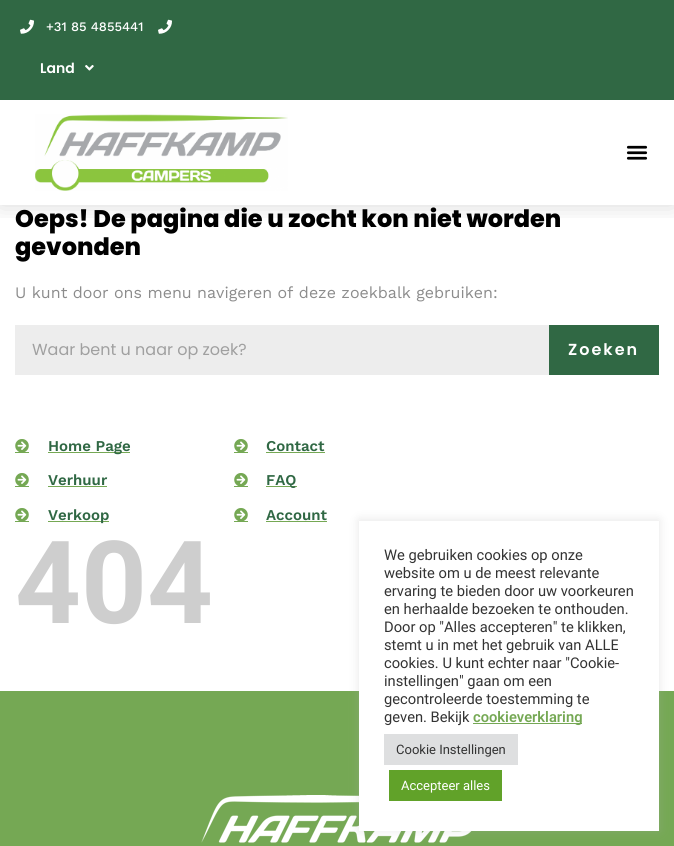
#include <cairo/cairo.h>
#include <math.h>
#include <stddef.h>

typedef struct { double x, y; const char *s; } line_t;
typedef struct { double x, y, w, h; unsigned color; } box_t;
static cairo_t *cr;

static void rgb(unsigned color)
{
	cairo_set_source_rgb(cr, (color >> 16) / 255.0, (color >> 8 & 255) / 255.0, (color & 255) / 255.0);
}

static void tracked(double x, double y, const char *s, double letter, double word)
{
	cairo_move_to(cr, x, y);
	while (*s) {
		char ch[5] = {0};
		int n = 0;
		do ch[n++] = *s++; while ((*s & 0xC0) == 0x80);
		cairo_show_text(cr, ch);
		cairo_rel_move_to(cr, letter + word * (*ch == ' '), 0);
	}
}

static void rrect(double x, double y, double w, double h, double r)
{
	cairo_new_sub_path(cr);
	cairo_arc(cr, x + w - r, y + h - r, r, 0, M_PI / 2);
	cairo_arc(cr, x + r, y + h - r, r, M_PI / 2, M_PI);
	cairo_arc(cr, x + r, y + r, r, M_PI, 1.5 * M_PI);
	cairo_arc(cr, x + w - r, y + r, r, 1.5 * M_PI, 2 * M_PI);
	cairo_close_path(cr);
}

static void soft_shadow(double x, double y, double w, double h, double r, double blur, double alpha)
{
	cairo_push_group_with_content(cr, CAIRO_CONTENT_ALPHA);
	cairo_set_operator(cr, CAIRO_OPERATOR_SOURCE);
	for (int i = 15; i >= -15 && fmin(w, h) + blur * i / 3 > 0; i -= 2) {
		double e = blur * i / 6;
		cairo_set_source_rgba(cr, 0, 0, 0, alpha * erfc((i - 1) / 8.5) / 2);
		rrect(x - e, y - e, w + 2 * e, h + 2 * e, fmax(0, fmin(r + e + blur * .6, fmin(w, h) / 2 + e)));
		cairo_fill(cr);
	}
	cairo_pattern_t *soft = cairo_pop_group(cr);
	cairo_mask(cr, soft);
	cairo_pattern_destroy(soft);
}

static void image(const char *path, double x, double y, double w, double h)
{
	cairo_surface_t *image = cairo_image_surface_create_from_png(path);
	cairo_save(cr);
	cairo_set_source_surface(cr, image, x, y);
	cairo_rectangle(cr, x, y, w, h);
	cairo_fill(cr);
	cairo_restore(cr);
	cairo_surface_destroy(image);
}

int main(void) {
	cairo_surface_t *surface = cairo_image_surface_create(CAIRO_FORMAT_RGB24, 674, 846);
	cr = cairo_create(surface);
	cairo_font_options_t *options = cairo_font_options_create();
	cairo_font_options_set_hint_metrics(options, CAIRO_HINT_METRICS_OFF);
	cairo_font_options_set_hint_style(options, CAIRO_HINT_STYLE_NONE);
	cairo_set_font_options(cr, options);
	cairo_set_miter_limit(cr, 4);
	rgb(0xffffff);
	cairo_paint(cr);
	cairo_save(cr);
	cairo_rectangle(cr, 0, 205, 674, 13);
	cairo_clip(cr);
	rgb(0x000000);
	soft_shadow(0, 100, 674, 105, 0, 12, 0.15);
	cairo_restore(cr);
	rgb(0x306844);
	cairo_rectangle(cr, 0, 0, 674, 100);
	cairo_fill(cr);
	image("img/1.png", 20, 19, 14, 15);
	image("img/1.png", 158, 19, 14, 15);
	image("img/2.png", 85, 65, 9, 6);
	image("img/3.png", 35, 114, 253, 77);
	image("img/4.png", 626, 145, 22, 15);
	rgb(0xededed);
	cairo_rectangle(cr, 15, 325, 534, 50);
	cairo_fill(cr);
	rgb(0x306844);
	cairo_rectangle(cr, 549, 325, 110, 50);
	cairo_fill(cr);
	image("img/5.png", 15, 439, 14, 13);
	rgb(0x75a854);
	cairo_rectangle(cr, 15, 452, 14, 1);
	cairo_fill(cr);
	cairo_rectangle(cr, 48, 452, 82, 1);
	cairo_fill(cr);
	image("img/5.png", 15, 473, 14, 13);
	cairo_rectangle(cr, 15, 486, 14, 1);
	cairo_fill(cr);
	cairo_rectangle(cr, 48, 486, 59, 1);
	cairo_fill(cr);
	image("img/5.png", 15, 508, 14, 13);
	cairo_rectangle(cr, 15, 521, 14, 1);
	cairo_fill(cr);
	cairo_rectangle(cr, 48, 521, 61, 1);
	cairo_fill(cr);
	image("img/5.png", 234, 439, 14, 13);
	cairo_rectangle(cr, 234, 452, 14, 1);
	cairo_fill(cr);
	cairo_rectangle(cr, 266, 452, 59, 1);
	cairo_fill(cr);
	image("img/5.png", 234, 473, 14, 13);
	cairo_rectangle(cr, 234, 486, 14, 1);
	cairo_fill(cr);
	cairo_rectangle(cr, 266, 486, 31, 1);
	cairo_fill(cr);
	image("img/5.png", 234, 508, 14, 13);
	{
		static const box_t items[] = {
			{234, 521, 14, 1, 0x75a854},
			{266, 521, 61, 1, 0x75a854},
			{0, 691, 674, 155, 0x75a854},
		};
		for (size_t i = 0; i < sizeof items / sizeof *items; i++) {
			rgb(items[i].color);
			cairo_rectangle(cr, items[i].x, items[i].y, items[i].w, items[i].h);
			cairo_fill(cr);
		}
	}
	image("img/6.png", 201, 795, 271, 48);
	rgb(0xacabab);
	soft_shadow(359, 520, 300, 310, 0, 5, 0.3);
	{
		static const box_t items[] = {
			{359, 521, 300, 310, 0xffffff},
			{473, 723, 109, 1, 0x75a854},
			{384, 734, 134, 31, 0xdedfe0},
			{389, 770, 113, 31, 0x61a229},
		};
		for (size_t i = 0; i < sizeof items / sizeof *items; i++) {
			rgb(items[i].color);
			cairo_rectangle(cr, items[i].x, items[i].y, items[i].w, items[i].h);
			cairo_fill(cr);
		}
	}
	cairo_select_font_face(cr, "Work Sans Medium", CAIRO_FONT_SLANT_NORMAL, CAIRO_FONT_WEIGHT_NORMAL);
	cairo_set_font_size(cr, 13);
	rgb(0xffffff);
	cairo_move_to(cr, 46, 31);
	cairo_show_text(cr, "+31 85 4855441");
	cairo_select_font_face(cr, "Poppins SemiBold", CAIRO_FONT_SLANT_NORMAL, CAIRO_FONT_WEIGHT_NORMAL);
	cairo_set_font_size(cr, 14);
	cairo_move_to(cr, 40, 73);
	cairo_show_text(cr, "Land");
	cairo_select_font_face(cr, "Poppins ExtraBold", CAIRO_FONT_SLANT_NORMAL, CAIRO_FONT_WEIGHT_NORMAL);
	cairo_set_font_size(cr, 24);
	rgb(0x000000);
	cairo_move_to(cr, 15, 227);
	cairo_show_text(cr, "Oeps! De pagina die u zocht kon niet worden");
	cairo_move_to(cr, 15, 255);
	cairo_show_text(cr, "gevonden");
	cairo_select_font_face(cr, "Work Sans", CAIRO_FONT_SLANT_NORMAL, CAIRO_FONT_WEIGHT_NORMAL);
	cairo_set_font_size(cr, 16);
	rgb(0x8c8c8c);
	cairo_move_to(cr, 15, 298);
	cairo_show_text(cr, "U kunt door ons menu navigeren of deze zoekbalk gebruiken:");
	cairo_select_font_face(cr, "Poppins", CAIRO_FONT_SLANT_NORMAL, CAIRO_FONT_WEIGHT_NORMAL);
	rgb(0xa0a0a0);
	cairo_move_to(cr, 32, 355);
	cairo_show_text(cr, "Waar bent u naar op zoek?");
	cairo_select_font_face(cr, "Poppins SemiBold", CAIRO_FONT_SLANT_NORMAL, CAIRO_FONT_WEIGHT_NORMAL);
	rgb(0xffffff);
	tracked(568, 355, "Zoeken", 2, 0);
	cairo_select_font_face(cr, "Work Sans SemiBold", CAIRO_FONT_SLANT_NORMAL, CAIRO_FONT_WEIGHT_NORMAL);
	cairo_set_font_size(cr, 15);
	rgb(0x306844);
	{
		static const line_t items[] = {
			{48, 451, "Home Page"},
			{48, 485, "Verhuur"},
			{48, 520, "Verkoop"},
			{266, 451, "Contact"},
			{266, 485, "FAQ"},
			{266, 520, "Account"},
		};
		for (size_t i = 0; i < sizeof items / sizeof *items; i++) {
			cairo_move_to(cr, items[i].x, items[i].y);
			cairo_show_text(cr, items[i].s);
		}
	}
	cairo_select_font_face(cr, "Roboto", CAIRO_FONT_SLANT_NORMAL, CAIRO_FONT_WEIGHT_BOLD);
	cairo_set_font_size(cr, 115);
	rgb(0xcecece);
	cairo_move_to(cr, 15, 623);
	cairo_show_text(cr, "404");
	cairo_select_font_face(cr, "Roboto", CAIRO_FONT_SLANT_NORMAL, CAIRO_FONT_WEIGHT_NORMAL);
	cairo_set_font_size(cr, 14.7);
	rgb(0x333333);
	{
		static const line_t items[] = {
			{384, 560, "We gebruiken cookies op onze"},
			{384, 578, "website om u de meest relevante"},
			{384, 596, "ervaring te bieden door uw voorkeuren"},
			{384, 614, "en herhaalde bezoeken te onthouden."},
			{384, 632, "Door op \"Alles accepteren\" te klikken,"},
			{384, 650, "stemt u in met het gebruik van ALLE"},
			{384, 668, "cookies. U kunt echter naar \"Cookie-"},
			{384, 686, "instellingen\" gaan om een"},
			{384, 704, "gecontroleerde toestemming te"},
			{384, 722, "geven. Bekijk"},
		};
		for (size_t i = 0; i < sizeof items / sizeof *items; i++) {
			cairo_move_to(cr, items[i].x, items[i].y);
			cairo_show_text(cr, items[i].s);
		}
	}
	cairo_select_font_face(cr, "Roboto SemiBold", CAIRO_FONT_SLANT_NORMAL, CAIRO_FONT_WEIGHT_NORMAL);
	rgb(0x75a854);
	cairo_move_to(cr, 473, 722);
	cairo_show_text(cr, "cookieverklaring");
	cairo_select_font_face(cr, "Roboto", CAIRO_FONT_SLANT_NORMAL, CAIRO_FONT_WEIGHT_NORMAL);
	cairo_set_font_size(cr, 13);
	rgb(0x333333);
	cairo_move_to(cr, 396, 754);
	cairo_show_text(cr, "Cookie Instellingen");
	rgb(0xffffff);
	cairo_move_to(cr, 401, 790);
	cairo_show_text(cr, "Accepteer alles");
	cairo_surface_write_to_png(surface, "page.png");
	cairo_font_options_destroy(options);
	cairo_destroy(cr);
	cairo_surface_destroy(surface);
	return 0;
}
